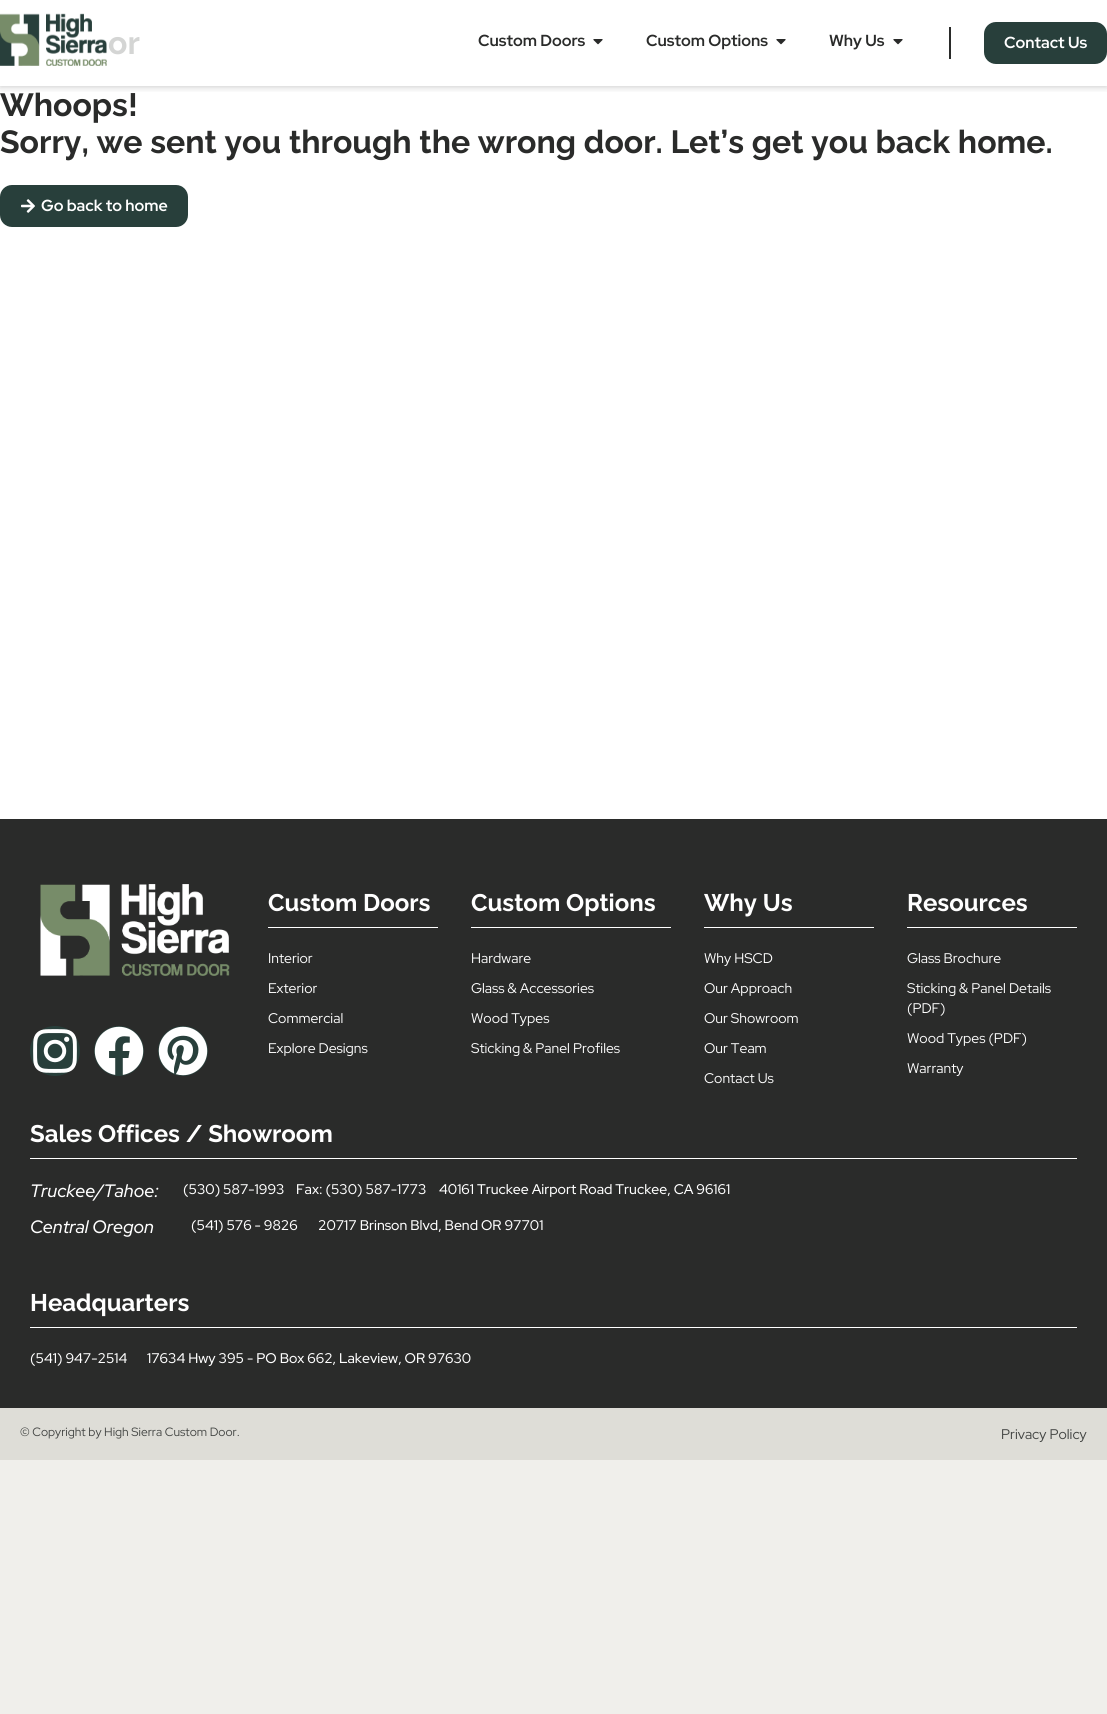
#include <cairo/cairo.h>
#include <math.h>
#include <stddef.h>

typedef struct { double x, y; const char *s; } line_t;
typedef struct { double x, y, w, h; unsigned color; } box_t;
static cairo_t *cr;

static void rgb(unsigned color)
{
	cairo_set_source_rgb(cr, (color >> 16) / 255.0, (color >> 8 & 255) / 255.0, (color & 255) / 255.0);
}

static void rrect(double x, double y, double w, double h, double r)
{
	cairo_new_sub_path(cr);
	cairo_arc(cr, x + w - r, y + h - r, r, 0, M_PI / 2);
	cairo_arc(cr, x + r, y + h - r, r, M_PI / 2, M_PI);
	cairo_arc(cr, x + r, y + r, r, M_PI, 1.5 * M_PI);
	cairo_arc(cr, x + w - r, y + r, r, 1.5 * M_PI, 2 * M_PI);
	cairo_close_path(cr);
}

static void soft_shadow(double x, double y, double w, double h, double r, double blur, double alpha)
{
	cairo_push_group_with_content(cr, CAIRO_CONTENT_ALPHA);
	cairo_set_operator(cr, CAIRO_OPERATOR_SOURCE);
	for (int i = 15; i >= -15 && fmin(w, h) + blur * i / 3 > 0; i -= 2) {
		double e = blur * i / 6;
		cairo_set_source_rgba(cr, 0, 0, 0, alpha * erfc((i - 1) / 8.5) / 2);
		rrect(x - e, y - e, w + 2 * e, h + 2 * e, fmax(0, fmin(r + e + blur * .6, fmin(w, h) / 2 + e)));
		cairo_fill(cr);
	}
	cairo_pattern_t *soft = cairo_pop_group(cr);
	cairo_mask(cr, soft);
	cairo_pattern_destroy(soft);
}

static void image(const char *path, double x, double y, double w, double h)
{
	cairo_surface_t *image = cairo_image_surface_create_from_png(path);
	cairo_save(cr);
	cairo_set_source_surface(cr, image, x, y);
	cairo_rectangle(cr, x, y, w, h);
	cairo_fill(cr);
	cairo_restore(cr);
	cairo_surface_destroy(image);
}

int main(void) {
	cairo_surface_t *surface = cairo_image_surface_create(CAIRO_FORMAT_RGB24, 1107, 1714);
	cr = cairo_create(surface);
	cairo_font_options_t *options = cairo_font_options_create();
	cairo_font_options_set_hint_metrics(options, CAIRO_HINT_METRICS_OFF);
	cairo_font_options_set_hint_style(options, CAIRO_HINT_STYLE_NONE);
	cairo_set_font_options(cr, options);
	cairo_set_miter_limit(cr, 4);
	rgb(0xf0efeb);
	cairo_paint(cr);
	rgb(0xffffff);
	cairo_rectangle(cr, 0, 0, 1107, 819);
	cairo_fill(cr);
	cairo_save(cr);
	cairo_rectangle(cr, 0, 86, 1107, 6);
	cairo_clip(cr);
	rgb(0x000000);
	soft_shadow(0, 0, 1107, 86, 0, 4, 0.25);
	cairo_restore(cr);
	image("img/1.png", 0, 13, 107, 53);
	image("img/2.png", 593, 39, 10, 6);
	image("img/2.png", 776, 39, 10, 6);
	image("img/2.png", 893, 39, 10, 6);
	rgb(0x2a2b2a);
	cairo_rectangle(cr, 949, 27, 2, 32);
	cairo_fill(cr);
	rgb(0x283f3b);
	rrect(984, 22, 123, 42, 12);
	cairo_fill(cr);
	rrect(0, 185, 188, 42, 12);
	cairo_fill(cr);
	image("img/3.png", 21, 199, 14, 14);
	rgb(0x2a2b2a);
	cairo_rectangle(cr, 0, 819, 1107, 589);
	cairo_fill(cr);
	image("img/4.png", 40, 884, 190, 92);
	rgb(0x283f3b);
	cairo_arc(cr, 55, 1051, 25, 0, 2 * M_PI);
	cairo_fill(cr);
	image("img/5.png", 33, 1029, 44, 44);
	cairo_arc(cr, 119, 1051, 25, 0, 2 * M_PI);
	cairo_fill(cr);
	image("img/6.png", 94, 1026, 50, 49);
	cairo_arc(cr, 183, 1051, 25, 0, 2 * M_PI);
	cairo_fill(cr);
	image("img/7.png", 158, 1026, 50, 50);
	{
		static const box_t items[] = {
			{268, 927, 170, 1, 0xffffff},
			{471, 927, 200, 1, 0xffffff},
			{704, 927, 170, 1, 0xffffff},
			{907, 927, 170, 1, 0xffffff},
			{30, 1158, 1047, 1, 0xffffff},
			{30, 1327, 1047, 1, 0xffffff},
			{0, 1408, 1107, 52, 0xdeddd7},
		};
		for (size_t i = 0; i < sizeof items / sizeof *items; i++) {
			rgb(items[i].color);
			cairo_rectangle(cr, items[i].x, items[i].y, items[i].w, items[i].h);
			cairo_fill(cr);
		}
	}
	cairo_select_font_face(cr, "Red Hat Display", CAIRO_FONT_SLANT_NORMAL, CAIRO_FONT_WEIGHT_BOLD);
	cairo_set_font_size(cr, 16);
	rgb(0x2a2b2a);
	{
		static const line_t items[] = {
			{478, 46, "Custom Doors"},
			{646, 46, "Custom Options"},
			{829, 46, "Why Us"},
		};
		for (size_t i = 0; i < sizeof items / sizeof *items; i++) {
			cairo_move_to(cr, items[i].x, items[i].y);
			cairo_show_text(cr, items[i].s);
		}
	}
	rgb(0xffffff);
	cairo_move_to(cr, 1004, 48);
	cairo_show_text(cr, "Contact Us");
	cairo_select_font_face(cr, "Raleway", CAIRO_FONT_SLANT_NORMAL, CAIRO_FONT_WEIGHT_BOLD);
	cairo_set_font_size(cr, 32);
	rgb(0xd4d5d4);
	cairo_move_to(cr, 108, 54);
	cairo_show_text(cr, "or");
	rgb(0x2a2b2a);
	cairo_move_to(cr, 0, 116);
	cairo_show_text(cr, "Whoops!");
	cairo_move_to(cr, 0, 153);
	cairo_show_text(cr, "Sorry, we sent you through the wrong door. Let’s get you back home.");
	cairo_select_font_face(cr, "Red Hat Display", CAIRO_FONT_SLANT_NORMAL, CAIRO_FONT_WEIGHT_BOLD);
	cairo_set_font_size(cr, 16);
	rgb(0xffffff);
	cairo_move_to(cr, 41, 211);
	cairo_show_text(cr, "Go back to home");
	cairo_select_font_face(cr, "Raleway", CAIRO_FONT_SLANT_NORMAL, CAIRO_FONT_WEIGHT_BOLD);
	cairo_set_font_size(cr, 24);
	cairo_move_to(cr, 268, 911);
	cairo_show_text(cr, "Custom Doors");
	cairo_select_font_face(cr, "Red Hat Display", CAIRO_FONT_SLANT_NORMAL, CAIRO_FONT_WEIGHT_NORMAL);
	cairo_set_font_size(cr, 14);
	{
		static const line_t items[] = {
			{268, 963, "Interior"},
			{268, 993, "Exterior"},
			{268, 1023, "Commercial"},
			{268, 1053, "Explore Designs"},
		};
		for (size_t i = 0; i < sizeof items / sizeof *items; i++) {
			cairo_move_to(cr, items[i].x, items[i].y);
			cairo_show_text(cr, items[i].s);
		}
	}
	cairo_select_font_face(cr, "Raleway", CAIRO_FONT_SLANT_NORMAL, CAIRO_FONT_WEIGHT_BOLD);
	cairo_set_font_size(cr, 24);
	cairo_move_to(cr, 471, 911);
	cairo_show_text(cr, "Custom Options");
	cairo_select_font_face(cr, "Red Hat Display", CAIRO_FONT_SLANT_NORMAL, CAIRO_FONT_WEIGHT_NORMAL);
	cairo_set_font_size(cr, 14);
	{
		static const line_t items[] = {
			{471, 963, "Hardware"},
			{471, 993, "Glass & Accessories"},
			{471, 1023, "Wood Types"},
			{471, 1053, "Sticking & Panel Profiles"},
		};
		for (size_t i = 0; i < sizeof items / sizeof *items; i++) {
			cairo_move_to(cr, items[i].x, items[i].y);
			cairo_show_text(cr, items[i].s);
		}
	}
	cairo_select_font_face(cr, "Raleway", CAIRO_FONT_SLANT_NORMAL, CAIRO_FONT_WEIGHT_BOLD);
	cairo_set_font_size(cr, 24);
	cairo_move_to(cr, 704, 911);
	cairo_show_text(cr, "Why Us");
	cairo_select_font_face(cr, "Red Hat Display", CAIRO_FONT_SLANT_NORMAL, CAIRO_FONT_WEIGHT_NORMAL);
	cairo_set_font_size(cr, 14);
	{
		static const line_t items[] = {
			{704, 963, "Why HSCD"},
			{704, 993, "Our Approach"},
			{704, 1023, "Our Showroom"},
			{704, 1053, "Our Team"},
			{704, 1083, "Contact Us"},
		};
		for (size_t i = 0; i < sizeof items / sizeof *items; i++) {
			cairo_move_to(cr, items[i].x, items[i].y);
			cairo_show_text(cr, items[i].s);
		}
	}
	cairo_select_font_face(cr, "Raleway", CAIRO_FONT_SLANT_NORMAL, CAIRO_FONT_WEIGHT_BOLD);
	cairo_set_font_size(cr, 24);
	cairo_move_to(cr, 907, 911);
	cairo_show_text(cr, "Resources");
	cairo_select_font_face(cr, "Red Hat Display", CAIRO_FONT_SLANT_NORMAL, CAIRO_FONT_WEIGHT_NORMAL);
	cairo_set_font_size(cr, 14);
	{
		static const line_t items[] = {
			{907, 963, "Glass Brochure"},
			{907, 993, "Sticking & Panel Details"},
			{907, 1013, "(PDF)"},
			{907, 1043, "Wood Types (PDF)"},
			{907, 1073, "Warranty"},
		};
		for (size_t i = 0; i < sizeof items / sizeof *items; i++) {
			cairo_move_to(cr, items[i].x, items[i].y);
			cairo_show_text(cr, items[i].s);
		}
	}
	cairo_select_font_face(cr, "Raleway", CAIRO_FONT_SLANT_NORMAL, CAIRO_FONT_WEIGHT_BOLD);
	cairo_set_font_size(cr, 24);
	cairo_move_to(cr, 30, 1142);
	cairo_show_text(cr, "Sales Offices / Showroom");
	cairo_select_font_face(cr, "Red Hat Display Medium", CAIRO_FONT_SLANT_ITALIC, CAIRO_FONT_WEIGHT_NORMAL);
	cairo_set_font_size(cr, 18);
	cairo_move_to(cr, 30, 1197);
	cairo_show_text(cr, "Truckee/Tahoe:");
	cairo_select_font_face(cr, "Red Hat Display Medium", CAIRO_FONT_SLANT_NORMAL, CAIRO_FONT_WEIGHT_NORMAL);
	cairo_set_font_size(cr, 14);
	{
		static const line_t items[] = {
			{183, 1194, "(530) 587-1993"},
			{296, 1194, "Fax: (530) 587-1773"},
			{439, 1194, "40161 Truckee Airport Road Truckee, CA 96161"},
		};
		for (size_t i = 0; i < sizeof items / sizeof *items; i++) {
			cairo_move_to(cr, items[i].x, items[i].y);
			cairo_show_text(cr, items[i].s);
		}
	}
	cairo_select_font_face(cr, "Red Hat Display Medium", CAIRO_FONT_SLANT_ITALIC, CAIRO_FONT_WEIGHT_NORMAL);
	cairo_set_font_size(cr, 18);
	cairo_move_to(cr, 30, 1233);
	cairo_show_text(cr, "Central Oregon");
	cairo_select_font_face(cr, "Red Hat Display Medium", CAIRO_FONT_SLANT_NORMAL, CAIRO_FONT_WEIGHT_NORMAL);
	cairo_set_font_size(cr, 14);
	cairo_move_to(cr, 191, 1230);
	cairo_show_text(cr, "(541) 576 - 9826");
	cairo_move_to(cr, 318, 1230);
	cairo_show_text(cr, "20717 Brinson Blvd, Bend OR 97701");
	cairo_select_font_face(cr, "Raleway", CAIRO_FONT_SLANT_NORMAL, CAIRO_FONT_WEIGHT_BOLD);
	cairo_set_font_size(cr, 24);
	cairo_move_to(cr, 30, 1311);
	cairo_show_text(cr, "Headquarters");
	cairo_select_font_face(cr, "Red Hat Display Medium", CAIRO_FONT_SLANT_NORMAL, CAIRO_FONT_WEIGHT_NORMAL);
	cairo_set_font_size(cr, 14);
	cairo_move_to(cr, 30, 1363);
	cairo_show_text(cr, "(541) 947-2514");
	cairo_move_to(cr, 147, 1363);
	cairo_show_text(cr, "17634 Hwy 395 - PO Box 662, Lakeview, OR 97630");
	cairo_select_font_face(cr, "Red Hat Display", CAIRO_FONT_SLANT_NORMAL, CAIRO_FONT_WEIGHT_NORMAL);
	cairo_set_font_size(cr, 12);
	rgb(0x434543);
	cairo_move_to(cr, 20, 1436);
	cairo_show_text(cr, "© Copyright by High Sierra Custom Door.");
	cairo_set_font_size(cr, 14);
	cairo_move_to(cr, 1001, 1439);
	cairo_show_text(cr, "Privacy Policy");
	cairo_surface_write_to_png(surface, "page.png");
	cairo_font_options_destroy(options);
	cairo_destroy(cr);
	cairo_surface_destroy(surface);
	return 0;
}
